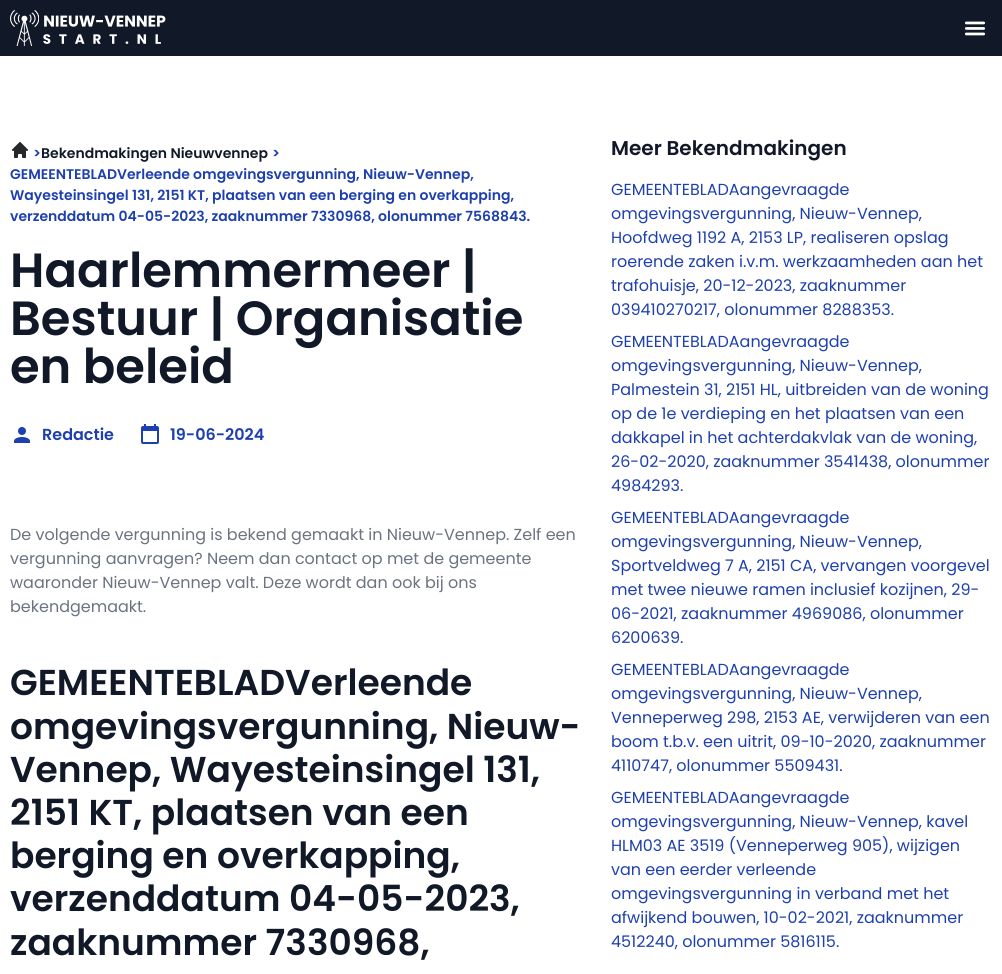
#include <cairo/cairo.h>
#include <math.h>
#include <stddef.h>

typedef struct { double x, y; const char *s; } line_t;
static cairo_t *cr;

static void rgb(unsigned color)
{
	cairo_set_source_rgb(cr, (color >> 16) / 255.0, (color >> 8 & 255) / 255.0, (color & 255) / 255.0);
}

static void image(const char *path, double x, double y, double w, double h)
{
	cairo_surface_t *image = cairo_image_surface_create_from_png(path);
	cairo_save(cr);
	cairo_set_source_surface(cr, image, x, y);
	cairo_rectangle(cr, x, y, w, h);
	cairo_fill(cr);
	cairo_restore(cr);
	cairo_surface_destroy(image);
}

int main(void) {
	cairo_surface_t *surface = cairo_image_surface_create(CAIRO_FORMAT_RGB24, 1002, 974);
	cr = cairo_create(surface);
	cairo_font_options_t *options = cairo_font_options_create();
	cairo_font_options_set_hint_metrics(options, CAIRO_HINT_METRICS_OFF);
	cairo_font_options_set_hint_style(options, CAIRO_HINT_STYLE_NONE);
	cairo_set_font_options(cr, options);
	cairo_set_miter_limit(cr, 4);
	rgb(0xffffff);
	cairo_paint(cr);
	rgb(0x111827);
	cairo_rectangle(cr, 0, 0, 1002, 56);
	cairo_fill(cr);
	image("img/1.png", 10, 10, 156, 36);
	image("img/2.png", 964, 21, 22, 15);
	image("img/3.png", 12, 142, 16, 16);
	image("img/4.png", 14, 427, 16, 16);
	image("img/5.png", 141, 424, 18, 20);
	cairo_select_font_face(cr, "Poppins SemiBold", CAIRO_FONT_SLANT_NORMAL, CAIRO_FONT_WEIGHT_NORMAL);
	cairo_set_font_size(cr, 14);
	rgb(0x1e40af);
	cairo_move_to(cr, 33, 158);
	cairo_show_text(cr, ">");
	rgb(0x111827);
	cairo_move_to(cr, 41, 158);
	cairo_show_text(cr, "Bekendmakingen Nieuwvennep");
	rgb(0x1e40af);
	{
		static const line_t items[] = {
			{272, 158, ">"},
			{10, 179, "GEMEENTEBLADVerleende omgevingsvergunning, Nieuw-Vennep,"},
			{10, 200, "Wayesteinsingel 131, 2151 KT, plaatsen van een berging en overkapping,"},
			{10, 221, "verzenddatum 04-05-2023, zaaknummer 7330968, olonummer 7568843."},
		};
		for (size_t i = 0; i < sizeof items / sizeof *items; i++) {
			cairo_move_to(cr, items[i].x, items[i].y);
			cairo_show_text(cr, items[i].s);
		}
	}
	cairo_set_font_size(cr, 48);
	rgb(0x111827);
	{
		static const line_t items[] = {
			{10, 287, "Haarlemmermeer |"},
			{10, 335, "Bestuur | Organisatie"},
			{10, 383, "en beleid"},
		};
		for (size_t i = 0; i < sizeof items / sizeof *items; i++) {
			cairo_move_to(cr, items[i].x, items[i].y);
			cairo_show_text(cr, items[i].s);
		}
	}
	cairo_set_font_size(cr, 16);
	rgb(0x1e40af);
	cairo_move_to(cr, 42, 440);
	cairo_show_text(cr, "Redactie");
	cairo_move_to(cr, 170, 440);
	cairo_show_text(cr, "19-06-2024");
	cairo_select_font_face(cr, "Poppins", CAIRO_FONT_SLANT_NORMAL, CAIRO_FONT_WEIGHT_NORMAL);
	rgb(0x6b7280);
	{
		static const line_t items[] = {
			{10, 540, "De volgende vergunning is bekend gemaakt in Nieuw-Vennep. Zelf een"},
			{10, 564, "vergunning aanvragen? Neem dan contact op met de gemeente"},
			{10, 588, "waaronder Nieuw-Vennep valt. Deze wordt dan ook bij ons"},
			{10, 612, "bekendgemaakt."},
		};
		for (size_t i = 0; i < sizeof items / sizeof *items; i++) {
			cairo_move_to(cr, items[i].x, items[i].y);
			cairo_show_text(cr, items[i].s);
		}
	}
	cairo_select_font_face(cr, "Poppins SemiBold", CAIRO_FONT_SLANT_NORMAL, CAIRO_FONT_WEIGHT_NORMAL);
	cairo_set_font_size(cr, 36);
	rgb(0x111827);
	{
		static const line_t items[] = {
			{10, 695, "GEMEENTEBLADVerleende"},
			{10, 739, "omgevingsvergunning, Nieuw-"},
			{10, 782, "Vennep, Wayesteinsingel 131,"},
			{10, 825, "2151 KT, plaatsen van een"},
			{10, 868, "berging en overkapping,"},
			{10, 911, "verzenddatum 04-05-2023,"},
			{10, 955, "zaaknummer 7330968,"},
		};
		for (size_t i = 0; i < sizeof items / sizeof *items; i++) {
			cairo_move_to(cr, items[i].x, items[i].y);
			cairo_show_text(cr, items[i].s);
		}
	}
	cairo_set_font_size(cr, 20);
	cairo_move_to(cr, 611, 155);
	cairo_show_text(cr, "Meer Bekendmakingen");
	cairo_select_font_face(cr, "Poppins", CAIRO_FONT_SLANT_NORMAL, CAIRO_FONT_WEIGHT_NORMAL);
	cairo_set_font_size(cr, 16);
	rgb(0x1e40af);
	{
		static const line_t items[] = {
			{611, 195, "GEMEENTEBLADAangevraagde"},
			{611, 219, "omgevingsvergunning, Nieuw-Vennep,"},
			{611, 243, "Hoofdweg 1192 A, 2153 LP, realiseren opslag"},
			{611, 267, "roerende zaken i.v.m. werkzaamheden aan het"},
			{611, 291, "trafohuisje, 20-12-2023, zaaknummer"},
			{611, 315, "039410270217, olonummer 8288353."},
			{611, 347, "GEMEENTEBLADAangevraagde"},
			{611, 371, "omgevingsvergunning, Nieuw-Vennep,"},
			{611, 395, "Palmestein 31, 2151 HL, uitbreiden van de woning"},
			{611, 419, "op de 1e verdieping en het plaatsen van een"},
			{611, 443, "dakkapel in het achterdakvlak van de woning,"},
			{611, 467, "26-02-2020, zaaknummer 3541438, olonummer"},
			{611, 491, "4984293."},
			{611, 523, "GEMEENTEBLADAangevraagde"},
			{611, 547, "omgevingsvergunning, Nieuw-Vennep,"},
			{611, 571, "Sportveldweg 7 A, 2151 CA, vervangen voorgevel"},
			{611, 595, "met twee nieuwe ramen inclusief kozijnen, 29-"},
			{611, 619, "06-2021, zaaknummer 4969086, olonummer"},
			{611, 643, "6200639."},
			{611, 675, "GEMEENTEBLADAangevraagde"},
			{611, 699, "omgevingsvergunning, Nieuw-Vennep,"},
			{611, 723, "Venneperweg 298, 2153 AE, verwijderen van een"},
			{611, 747, "boom t.b.v. een uitrit, 09-10-2020, zaaknummer"},
			{611, 771, "4110747, olonummer 5509431."},
			{611, 803, "GEMEENTEBLADAangevraagde"},
			{611, 827, "omgevingsvergunning, Nieuw-Vennep, kavel"},
			{611, 851, "HLM03 AE 3519 (Venneperweg 905), wijzigen"},
			{611, 875, "van een eerder verleende"},
			{611, 899, "omgevingsvergunning in verband met het"},
			{611, 923, "afwijkend bouwen, 10-02-2021, zaaknummer"},
			{611, 947, "4512240, olonummer 5816115."},
		};
		for (size_t i = 0; i < sizeof items / sizeof *items; i++) {
			cairo_move_to(cr, items[i].x, items[i].y);
			cairo_show_text(cr, items[i].s);
		}
	}
	cairo_surface_write_to_png(surface, "page.png");
	cairo_font_options_destroy(options);
	cairo_destroy(cr);
	cairo_surface_destroy(surface);
	return 0;
}
